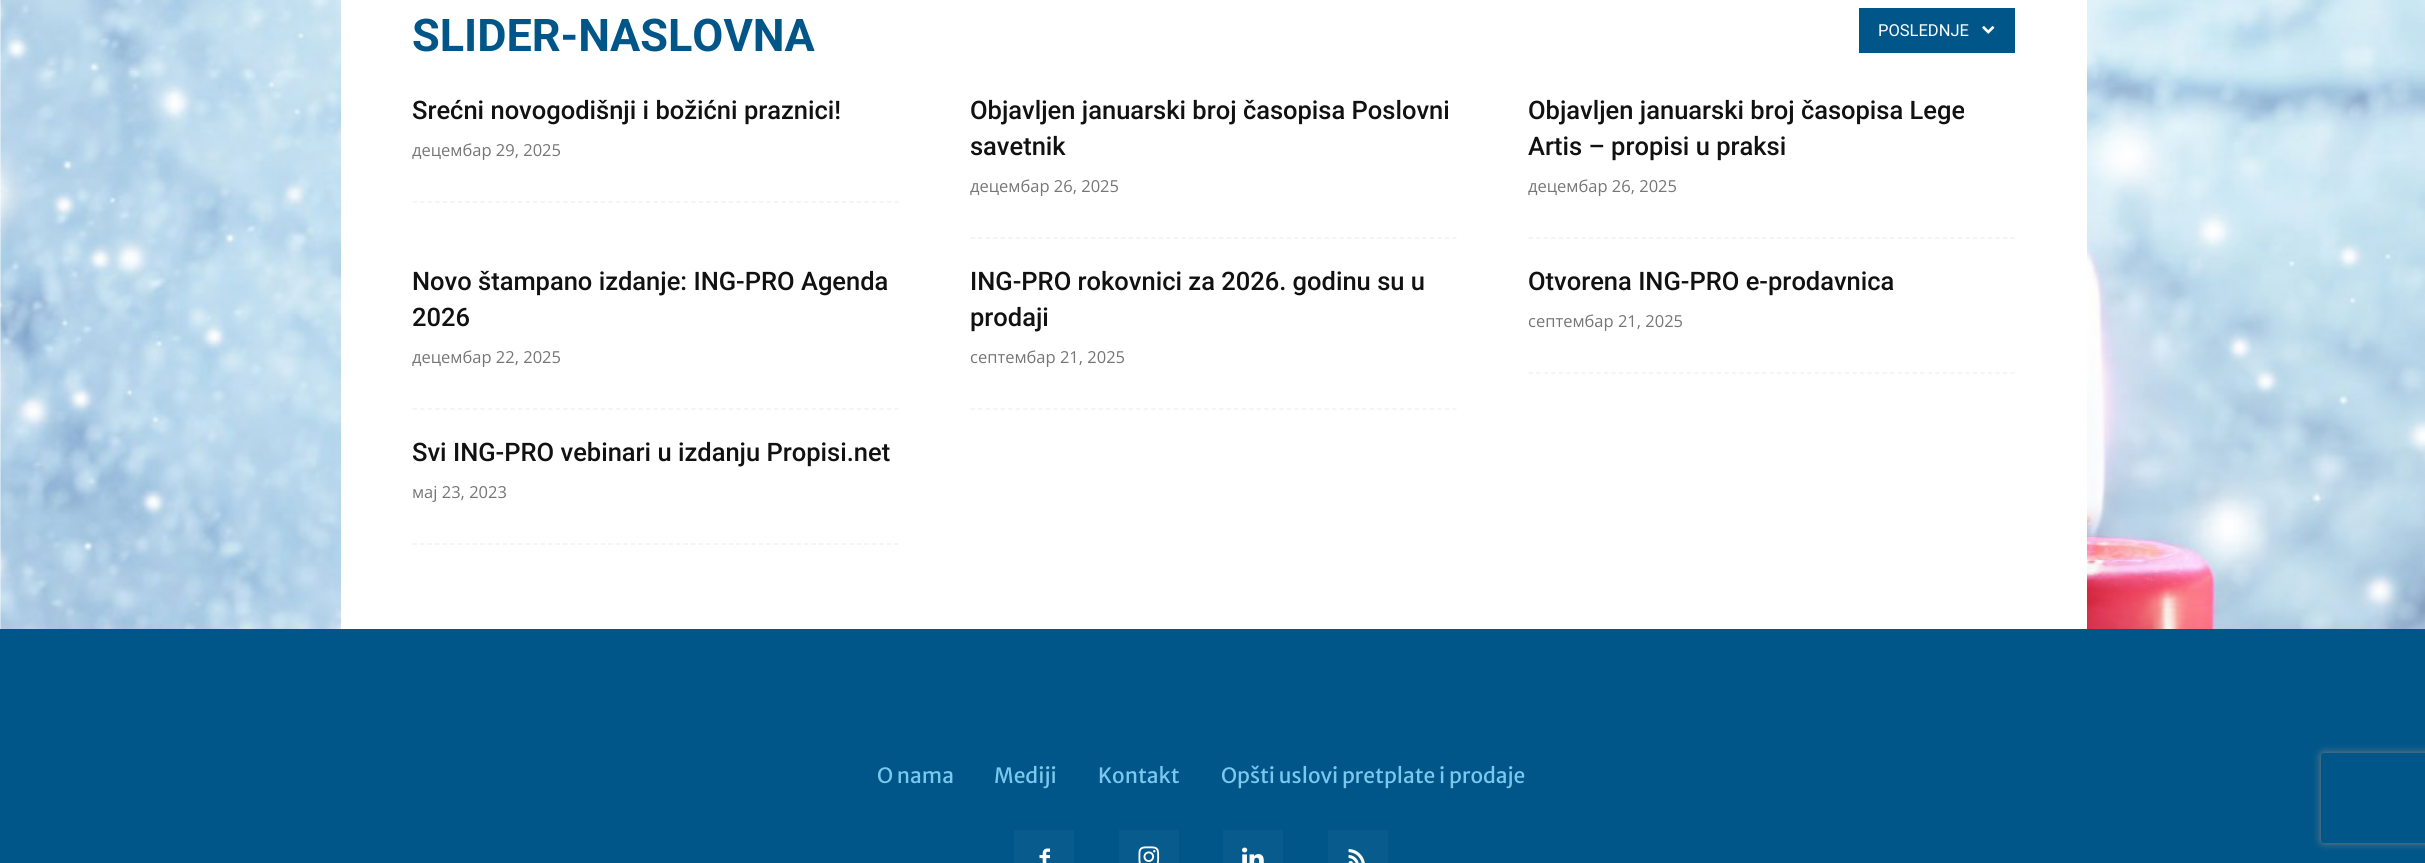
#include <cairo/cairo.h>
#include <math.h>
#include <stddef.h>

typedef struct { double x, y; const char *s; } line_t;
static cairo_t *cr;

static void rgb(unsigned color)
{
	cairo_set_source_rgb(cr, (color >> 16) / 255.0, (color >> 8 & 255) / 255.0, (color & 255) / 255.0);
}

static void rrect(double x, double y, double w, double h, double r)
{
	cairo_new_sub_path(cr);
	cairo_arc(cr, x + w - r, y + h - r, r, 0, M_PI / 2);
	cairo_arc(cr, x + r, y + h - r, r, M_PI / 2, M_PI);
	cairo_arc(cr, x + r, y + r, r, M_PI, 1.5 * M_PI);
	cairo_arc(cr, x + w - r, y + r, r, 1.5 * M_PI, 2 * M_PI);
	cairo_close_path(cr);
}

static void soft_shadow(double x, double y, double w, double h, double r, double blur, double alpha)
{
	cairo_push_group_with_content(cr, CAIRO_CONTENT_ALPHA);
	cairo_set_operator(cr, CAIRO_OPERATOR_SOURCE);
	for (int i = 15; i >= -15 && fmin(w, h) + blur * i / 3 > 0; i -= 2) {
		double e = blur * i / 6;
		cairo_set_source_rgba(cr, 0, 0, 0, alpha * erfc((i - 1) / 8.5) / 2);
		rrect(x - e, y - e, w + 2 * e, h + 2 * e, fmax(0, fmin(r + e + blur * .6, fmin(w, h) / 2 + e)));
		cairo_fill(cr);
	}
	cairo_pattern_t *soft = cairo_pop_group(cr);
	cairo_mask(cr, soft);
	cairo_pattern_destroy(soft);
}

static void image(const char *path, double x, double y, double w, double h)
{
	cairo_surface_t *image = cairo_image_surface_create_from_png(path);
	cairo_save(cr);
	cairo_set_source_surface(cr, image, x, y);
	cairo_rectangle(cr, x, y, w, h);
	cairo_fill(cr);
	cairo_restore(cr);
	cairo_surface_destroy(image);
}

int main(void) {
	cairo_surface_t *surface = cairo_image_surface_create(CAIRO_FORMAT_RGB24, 2425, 863);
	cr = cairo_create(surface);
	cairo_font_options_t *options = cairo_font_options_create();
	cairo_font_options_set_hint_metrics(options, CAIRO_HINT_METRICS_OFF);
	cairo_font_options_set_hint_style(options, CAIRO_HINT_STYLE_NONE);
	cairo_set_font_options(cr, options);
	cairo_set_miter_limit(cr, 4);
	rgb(0xffffff);
	cairo_paint(cr);
	image("img/1.png", 0, 0, 2425, 629);
	rgb(0xffffff);
	cairo_rectangle(cr, 341, 0, 1746, 629);
	cairo_fill(cr);
	rgb(0x005689);
	cairo_rectangle(cr, 1859, 8, 156, 45);
	cairo_fill(cr);
	image("img/2.png", 1982, 26, 13, 8);
	cairo_new_path(cr);
	cairo_move_to(cr, 412.5, 202);
	cairo_line_to(cr, 898.5, 202);
	rgb(0xf2f2f2);
	cairo_set_line_width(cr, 1.5);
	cairo_set_dash(cr, (double[]){4.5, 3.03}, 2, 0);
	cairo_stroke(cr);
	cairo_new_path(cr);
	cairo_move_to(cr, 970.5, 238);
	cairo_line_to(cr, 1456.5, 238);
	cairo_stroke(cr);
	cairo_new_path(cr);
	cairo_move_to(cr, 1528.5, 238);
	cairo_line_to(cr, 2014.5, 238);
	cairo_stroke(cr);
	cairo_new_path(cr);
	cairo_move_to(cr, 412.5, 409);
	cairo_line_to(cr, 898.5, 409);
	cairo_stroke(cr);
	cairo_new_path(cr);
	cairo_move_to(cr, 970.5, 409);
	cairo_line_to(cr, 1456.5, 409);
	cairo_stroke(cr);
	cairo_new_path(cr);
	cairo_move_to(cr, 1528.5, 373);
	cairo_line_to(cr, 2014.5, 373);
	cairo_stroke(cr);
	cairo_new_path(cr);
	cairo_move_to(cr, 412.5, 544);
	cairo_line_to(cr, 898.5, 544);
	cairo_stroke(cr);
	rgb(0x005689);
	cairo_rectangle(cr, 0, 629, 2425, 234);
	cairo_fill(cr);
	rgb(0x085b8d);
	cairo_rectangle(cr, 1014, 830, 60, 33);
	cairo_fill(cr);
	image("img/3.png", 1039, 848, 11, 15);
	cairo_rectangle(cr, 1119, 830, 60, 33);
	cairo_fill(cr);
	image("img/4.png", 1138, 846, 22, 17);
	cairo_rectangle(cr, 1223, 830, 60, 33);
	cairo_fill(cr);
	image("img/5.png", 1242, 847, 22, 16);
	cairo_rectangle(cr, 1328, 830, 60, 33);
	cairo_fill(cr);
	image("img/6.png", 1348, 849, 17, 14);
	cairo_save(cr);
	cairo_set_fill_rule(cr, CAIRO_FILL_RULE_EVEN_ODD);
	cairo_new_path(cr);
	cairo_move_to(cr, 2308, 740);
	cairo_line_to(cr, 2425, 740);
	cairo_line_to(cr, 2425, 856);
	cairo_line_to(cr, 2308, 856);
	cairo_close_path(cr);
	cairo_move_to(cr, 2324, 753);
	cairo_line_to(cr, 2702, 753);
	cairo_curve_to(cr, 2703.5, 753, 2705, 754.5, 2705, 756);
	cairo_line_to(cr, 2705, 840);
	cairo_curve_to(cr, 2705, 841.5, 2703.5, 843, 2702, 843);
	cairo_line_to(cr, 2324, 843);
	cairo_curve_to(cr, 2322.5, 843, 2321, 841.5, 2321, 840);
	cairo_line_to(cr, 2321, 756);
	cairo_curve_to(cr, 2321, 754.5, 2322.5, 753, 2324, 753);
	cairo_close_path(cr);
	cairo_clip(cr);
	rgb(0x808080);
	soft_shadow(2321, 753, 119, 90, 3, 4, 1);
	cairo_restore(cr);
	cairo_select_font_face(cr, "Roboto", CAIRO_FONT_SLANT_NORMAL, CAIRO_FONT_WEIGHT_BOLD);
	cairo_set_font_size(cr, 45);
	rgb(0x005689);
	cairo_move_to(cr, 412, 51);
	cairo_show_text(cr, "SLIDER-NASLOVNA");
	cairo_select_font_face(cr, "Roboto", CAIRO_FONT_SLANT_NORMAL, CAIRO_FONT_WEIGHT_NORMAL);
	cairo_set_font_size(cr, 16.5);
	rgb(0xffffff);
	cairo_move_to(cr, 1878, 36);
	cairo_show_text(cr, "POSLEDNJE");
	cairo_select_font_face(cr, "Roboto Medium", CAIRO_FONT_SLANT_NORMAL, CAIRO_FONT_WEIGHT_NORMAL);
	cairo_set_font_size(cr, 25.5);
	rgb(0x111111);
	cairo_move_to(cr, 412, 119);
	cairo_show_text(cr, "Srećni novogodišnji i božićni praznici!");
	cairo_select_font_face(cr, "Open Sans", CAIRO_FONT_SLANT_NORMAL, CAIRO_FONT_WEIGHT_NORMAL);
	cairo_set_font_size(cr, 16.5);
	rgb(0x767676);
	cairo_move_to(cr, 412, 156);
	cairo_show_text(cr, "децембар 29, 2025");
	cairo_select_font_face(cr, "Roboto Medium", CAIRO_FONT_SLANT_NORMAL, CAIRO_FONT_WEIGHT_NORMAL);
	cairo_set_font_size(cr, 25.5);
	rgb(0x111111);
	cairo_move_to(cr, 970, 119);
	cairo_show_text(cr, "Objavljen januarski broj časopisa Poslovni");
	cairo_move_to(cr, 970, 155);
	cairo_show_text(cr, "savetnik");
	cairo_select_font_face(cr, "Open Sans", CAIRO_FONT_SLANT_NORMAL, CAIRO_FONT_WEIGHT_NORMAL);
	cairo_set_font_size(cr, 16.5);
	rgb(0x767676);
	cairo_move_to(cr, 970, 192);
	cairo_show_text(cr, "децембар 26, 2025");
	cairo_select_font_face(cr, "Roboto Medium", CAIRO_FONT_SLANT_NORMAL, CAIRO_FONT_WEIGHT_NORMAL);
	cairo_set_font_size(cr, 25.5);
	rgb(0x111111);
	cairo_move_to(cr, 1528, 119);
	cairo_show_text(cr, "Objavljen januarski broj časopisa Lege");
	cairo_move_to(cr, 1528, 155);
	cairo_show_text(cr, "Artis – propisi u praksi");
	cairo_select_font_face(cr, "Open Sans", CAIRO_FONT_SLANT_NORMAL, CAIRO_FONT_WEIGHT_NORMAL);
	cairo_set_font_size(cr, 16.5);
	rgb(0x767676);
	cairo_move_to(cr, 1528, 192);
	cairo_show_text(cr, "децембар 26, 2025");
	cairo_select_font_face(cr, "Roboto Medium", CAIRO_FONT_SLANT_NORMAL, CAIRO_FONT_WEIGHT_NORMAL);
	cairo_set_font_size(cr, 25.5);
	rgb(0x111111);
	cairo_move_to(cr, 412, 290);
	cairo_show_text(cr, "Novo štampano izdanje: ING-PRO Agenda");
	cairo_move_to(cr, 412, 326);
	cairo_show_text(cr, "2026");
	cairo_select_font_face(cr, "Open Sans", CAIRO_FONT_SLANT_NORMAL, CAIRO_FONT_WEIGHT_NORMAL);
	cairo_set_font_size(cr, 16.5);
	rgb(0x767676);
	cairo_move_to(cr, 412, 363);
	cairo_show_text(cr, "децембар 22, 2025");
	cairo_select_font_face(cr, "Roboto Medium", CAIRO_FONT_SLANT_NORMAL, CAIRO_FONT_WEIGHT_NORMAL);
	cairo_set_font_size(cr, 25.5);
	rgb(0x111111);
	cairo_move_to(cr, 970, 290);
	cairo_show_text(cr, "ING-PRO rokovnici za 2026. godinu su u");
	cairo_move_to(cr, 970, 326);
	cairo_show_text(cr, "prodaji");
	cairo_select_font_face(cr, "Open Sans", CAIRO_FONT_SLANT_NORMAL, CAIRO_FONT_WEIGHT_NORMAL);
	cairo_set_font_size(cr, 16.5);
	rgb(0x767676);
	cairo_move_to(cr, 970, 363);
	cairo_show_text(cr, "септембар 21, 2025");
	cairo_select_font_face(cr, "Roboto Medium", CAIRO_FONT_SLANT_NORMAL, CAIRO_FONT_WEIGHT_NORMAL);
	cairo_set_font_size(cr, 25.5);
	rgb(0x111111);
	cairo_move_to(cr, 1528, 290);
	cairo_show_text(cr, "Otvorena ING-PRO e-prodavnica");
	cairo_select_font_face(cr, "Open Sans", CAIRO_FONT_SLANT_NORMAL, CAIRO_FONT_WEIGHT_NORMAL);
	cairo_set_font_size(cr, 16.5);
	rgb(0x767676);
	cairo_move_to(cr, 1528, 327);
	cairo_show_text(cr, "септембар 21, 2025");
	cairo_select_font_face(cr, "Roboto Medium", CAIRO_FONT_SLANT_NORMAL, CAIRO_FONT_WEIGHT_NORMAL);
	cairo_set_font_size(cr, 25.5);
	rgb(0x111111);
	cairo_move_to(cr, 412, 461);
	cairo_show_text(cr, "Svi ING-PRO vebinari u izdanju Propisi.net");
	cairo_select_font_face(cr, "Open Sans", CAIRO_FONT_SLANT_NORMAL, CAIRO_FONT_WEIGHT_NORMAL);
	cairo_set_font_size(cr, 16.5);
	rgb(0x767676);
	cairo_move_to(cr, 412, 498);
	cairo_show_text(cr, "мај 23, 2023");
	cairo_select_font_face(cr, "Merriweather Sans", CAIRO_FONT_SLANT_NORMAL, CAIRO_FONT_WEIGHT_NORMAL);
	cairo_set_font_size(cr, 21);
	rgb(0x7bc8ef);
	{
		static const line_t items[] = {
			{877, 783, "O nama"},
			{994, 783, "Mediji"},
			{1098, 783, "Kontakt"},
			{1221, 783, "Opšti uslovi pretplate i prodaje"},
		};
		for (size_t i = 0; i < sizeof items / sizeof *items; i++) {
			cairo_move_to(cr, items[i].x, items[i].y);
			cairo_show_text(cr, items[i].s);
		}
	}
	cairo_surface_write_to_png(surface, "page.png");
	cairo_font_options_destroy(options);
	cairo_destroy(cr);
	cairo_surface_destroy(surface);
	return 0;
}
